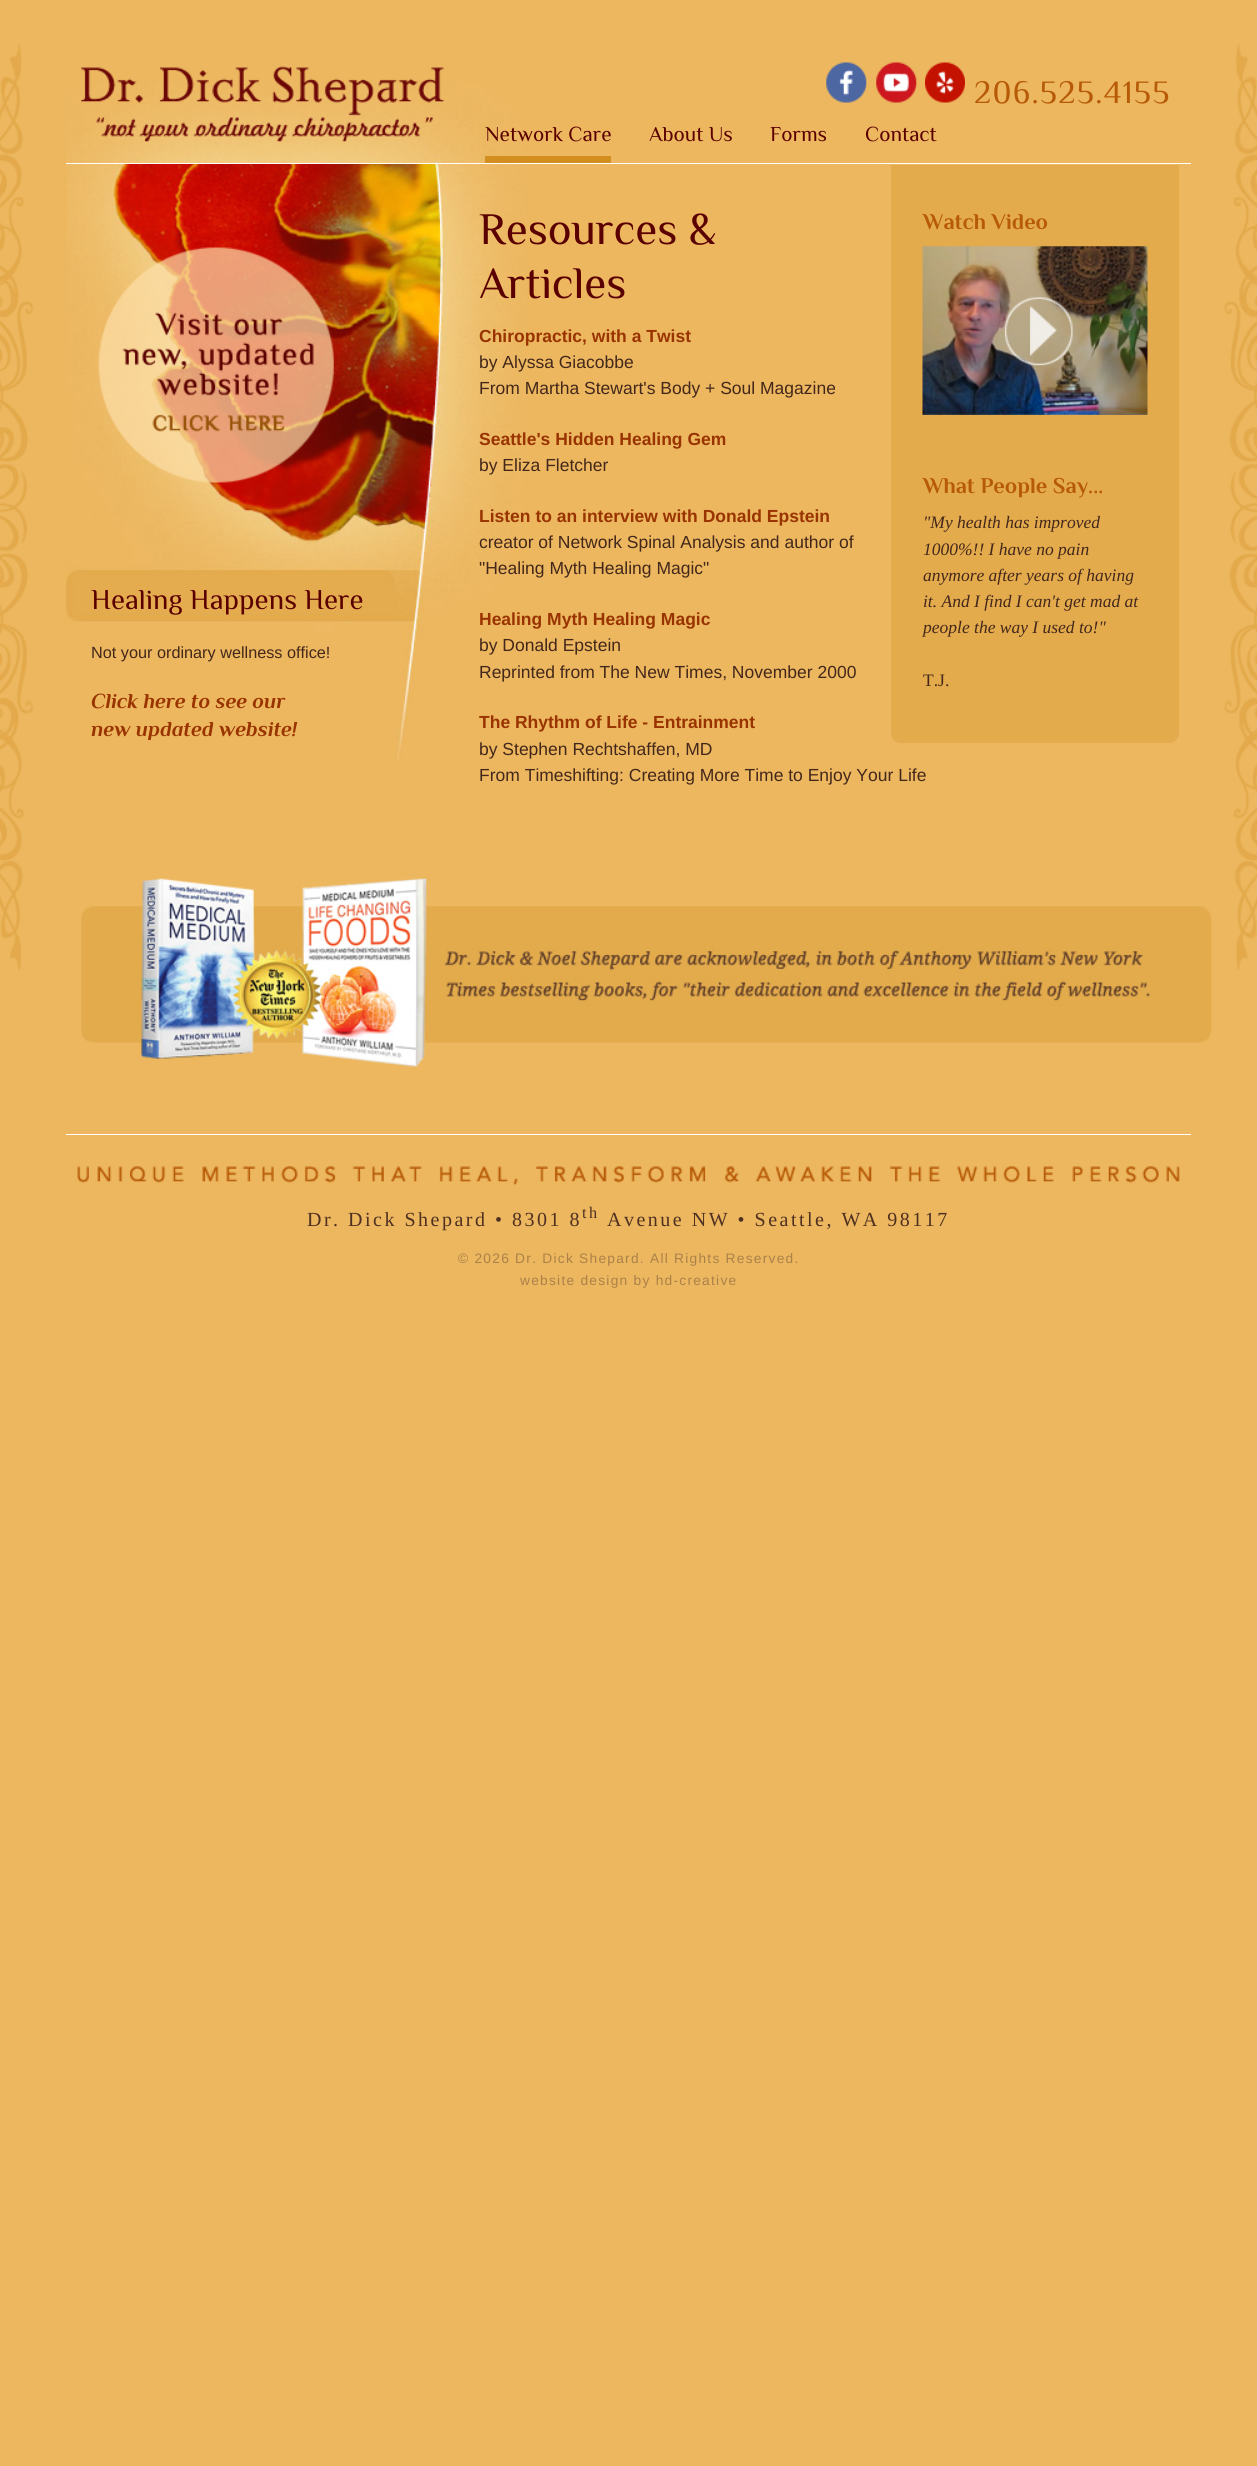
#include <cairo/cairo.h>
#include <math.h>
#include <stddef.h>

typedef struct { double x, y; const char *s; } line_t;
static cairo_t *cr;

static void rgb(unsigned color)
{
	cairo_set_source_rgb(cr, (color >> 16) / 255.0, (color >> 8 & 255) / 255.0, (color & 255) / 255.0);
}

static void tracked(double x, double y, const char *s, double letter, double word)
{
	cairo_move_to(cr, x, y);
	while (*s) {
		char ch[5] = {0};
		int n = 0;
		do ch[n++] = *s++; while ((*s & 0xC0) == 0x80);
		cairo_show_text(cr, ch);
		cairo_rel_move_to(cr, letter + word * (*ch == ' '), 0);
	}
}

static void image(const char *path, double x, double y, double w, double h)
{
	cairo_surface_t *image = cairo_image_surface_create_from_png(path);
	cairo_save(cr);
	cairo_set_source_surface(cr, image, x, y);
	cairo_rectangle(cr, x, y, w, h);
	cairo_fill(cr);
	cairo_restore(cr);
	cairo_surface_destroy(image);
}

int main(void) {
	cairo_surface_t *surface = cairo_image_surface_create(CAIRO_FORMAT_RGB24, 1257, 2466);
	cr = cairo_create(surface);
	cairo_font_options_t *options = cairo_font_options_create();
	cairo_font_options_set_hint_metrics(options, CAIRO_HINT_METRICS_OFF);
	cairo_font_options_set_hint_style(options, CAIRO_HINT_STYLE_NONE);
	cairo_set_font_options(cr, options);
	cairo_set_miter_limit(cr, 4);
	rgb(0xecb75f);
	cairo_paint(cr);
	image("img/1.png", 0, 44, 1257, 927);
	image("img/2.png", 66, 82, 459, 681);
	rgb(0xffffff);
	cairo_rectangle(cr, 66, 163, 1125, 1);
	cairo_fill(cr);
	image("img/3.png", 81, 66, 363, 76);
	image("img/4.png", 826, 62, 41, 41);
	image("img/5.png", 876, 62, 41, 41);
	image("img/6.png", 925, 62, 40, 41);
	rgb(0xd28f20);
	cairo_rectangle(cr, 485, 156, 126, 7);
	cairo_fill(cr);
	rgb(0xe4ab4d);
	cairo_new_path(cr);
	cairo_move_to(cr, 891, 165);
	cairo_line_to(cr, 1179, 165);
	cairo_line_to(cr, 1179, 733);
	cairo_curve_to(cr, 1179, 738.5, 1174.5, 743, 1169, 743);
	cairo_line_to(cr, 901, 743);
	cairo_curve_to(cr, 895.5, 743, 891, 738.5, 891, 733);
	cairo_close_path(cr);
	cairo_fill(cr);
	image("img/7.png", 922, 246, 226, 169);
	image("img/8.png", 81, 878, 1131, 189);
	image("img/9.png", 77, 1166, 1103, 19);
	rgb(0xffffff);
	cairo_rectangle(cr, 66, 1134, 1125, 1);
	cairo_fill(cr);
	cairo_select_font_face(cr, "Philosopher", CAIRO_FONT_SLANT_NORMAL, CAIRO_FONT_WEIGHT_NORMAL);
	cairo_set_font_size(cr, 32.5);
	rgb(0xb75a07);
	tracked(974, 103, "206.525.4155", 1.25, 0);
	cairo_set_font_size(cr, 21.25);
	rgb(0x5a0000);
	{
		static const line_t items[] = {
			{485, 141, "Network Care"},
			{649, 141, "About Us"},
			{770, 141, "Forms"},
			{865, 141, "Contact"},
		};
		for (size_t i = 0; i < sizeof items / sizeof *items; i++) {
			cairo_move_to(cr, items[i].x, items[i].y);
			cairo_show_text(cr, items[i].s);
		}
	}
	cairo_set_font_size(cr, 28.75);
	cairo_move_to(cr, 91, 609);
	cairo_show_text(cr, "Healing Happens Here");
	cairo_select_font_face(cr, "Liberation Sans", CAIRO_FONT_SLANT_NORMAL, CAIRO_FONT_WEIGHT_NORMAL);
	cairo_set_font_size(cr, 16.25);
	rgb(0x43271a);
	cairo_move_to(cr, 91, 658);
	cairo_show_text(cr, "Not your ordinary wellness office!");
	cairo_select_font_face(cr, "Philosopher", CAIRO_FONT_SLANT_ITALIC, CAIRO_FONT_WEIGHT_BOLD);
	cairo_set_font_size(cr, 21.25);
	rgb(0x993300);
	cairo_move_to(cr, 91, 708);
	cairo_show_text(cr, "Click here to see our");
	cairo_move_to(cr, 91, 736);
	cairo_show_text(cr, "new updated website!");
	cairo_select_font_face(cr, "Philosopher", CAIRO_FONT_SLANT_NORMAL, CAIRO_FONT_WEIGHT_NORMAL);
	cairo_set_font_size(cr, 45);
	rgb(0x5a0000);
	cairo_move_to(cr, 479, 244);
	cairo_show_text(cr, "Resources &");
	cairo_move_to(cr, 479, 298);
	cairo_show_text(cr, "Articles");
	cairo_select_font_face(cr, "Philosopher", CAIRO_FONT_SLANT_NORMAL, CAIRO_FONT_WEIGHT_BOLD);
	cairo_set_font_size(cr, 22.5);
	rgb(0xb75a07);
	cairo_move_to(cr, 923, 229);
	cairo_show_text(cr, "Watch Video");
	cairo_move_to(cr, 923, 493);
	cairo_show_text(cr, "What People Say...");
	cairo_select_font_face(cr, "Liberation Serif", CAIRO_FONT_SLANT_ITALIC, CAIRO_FONT_WEIGHT_NORMAL);
	cairo_set_font_size(cr, 17.5);
	rgb(0x43271a);
	{
		static const line_t items[] = {
			{923, 528, "\"My health has improved"},
			{923, 555, "1000%!! I have no pain"},
			{923, 581, "anymore after years of having"},
			{923, 607, "it. And I find I can't get mad at"},
			{923, 633, "people the way I used to!\""},
		};
		for (size_t i = 0; i < sizeof items / sizeof *items; i++) {
			cairo_move_to(cr, items[i].x, items[i].y);
			cairo_show_text(cr, items[i].s);
		}
	}
	cairo_select_font_face(cr, "Liberation Serif", CAIRO_FONT_SLANT_NORMAL, CAIRO_FONT_WEIGHT_NORMAL);
	cairo_move_to(cr, 923, 686);
	cairo_show_text(cr, "T.J.");
	cairo_select_font_face(cr, "Liberation Sans", CAIRO_FONT_SLANT_NORMAL, CAIRO_FONT_WEIGHT_BOLD);
	rgb(0x993300);
	cairo_move_to(cr, 479, 342);
	cairo_show_text(cr, "Chiropractic, with a Twist");
	cairo_select_font_face(cr, "Liberation Sans", CAIRO_FONT_SLANT_NORMAL, CAIRO_FONT_WEIGHT_NORMAL);
	rgb(0x43271a);
	cairo_move_to(cr, 479, 368);
	cairo_show_text(cr, "by Alyssa Giacobbe");
	cairo_move_to(cr, 479, 394);
	cairo_show_text(cr, "From Martha Stewart's Body + Soul Magazine");
	cairo_select_font_face(cr, "Liberation Sans", CAIRO_FONT_SLANT_NORMAL, CAIRO_FONT_WEIGHT_BOLD);
	rgb(0x993300);
	cairo_move_to(cr, 479, 445);
	cairo_show_text(cr, "Seattle's Hidden Healing Gem");
	cairo_select_font_face(cr, "Liberation Sans", CAIRO_FONT_SLANT_NORMAL, CAIRO_FONT_WEIGHT_NORMAL);
	rgb(0x43271a);
	cairo_move_to(cr, 479, 471);
	cairo_show_text(cr, "by Eliza Fletcher");
	cairo_select_font_face(cr, "Liberation Sans", CAIRO_FONT_SLANT_NORMAL, CAIRO_FONT_WEIGHT_BOLD);
	rgb(0x993300);
	cairo_move_to(cr, 479, 522);
	cairo_show_text(cr, "Listen to an interview with Donald Epstein");
	cairo_select_font_face(cr, "Liberation Sans", CAIRO_FONT_SLANT_NORMAL, CAIRO_FONT_WEIGHT_NORMAL);
	rgb(0x43271a);
	cairo_move_to(cr, 479, 548);
	cairo_show_text(cr, "creator of Network Spinal Analysis and author of");
	cairo_move_to(cr, 479, 574);
	cairo_show_text(cr, "\"Healing Myth Healing Magic\"");
	cairo_select_font_face(cr, "Liberation Sans", CAIRO_FONT_SLANT_NORMAL, CAIRO_FONT_WEIGHT_BOLD);
	rgb(0x993300);
	cairo_move_to(cr, 479, 625);
	cairo_show_text(cr, "Healing Myth Healing Magic");
	cairo_select_font_face(cr, "Liberation Sans", CAIRO_FONT_SLANT_NORMAL, CAIRO_FONT_WEIGHT_NORMAL);
	rgb(0x43271a);
	cairo_move_to(cr, 479, 651);
	cairo_show_text(cr, "by Donald Epstein");
	cairo_move_to(cr, 479, 678);
	cairo_show_text(cr, "Reprinted from The New Times, November 2000");
	cairo_select_font_face(cr, "Liberation Sans", CAIRO_FONT_SLANT_NORMAL, CAIRO_FONT_WEIGHT_BOLD);
	rgb(0x993300);
	cairo_move_to(cr, 479, 728);
	cairo_show_text(cr, "The Rhythm of Life - Entrainment");
	cairo_select_font_face(cr, "Liberation Sans", CAIRO_FONT_SLANT_NORMAL, CAIRO_FONT_WEIGHT_NORMAL);
	rgb(0x43271a);
	cairo_move_to(cr, 479, 755);
	cairo_show_text(cr, "by Stephen Rechtshaffen, MD");
	cairo_move_to(cr, 479, 781);
	cairo_show_text(cr, "From Timeshifting: Creating More Time to Enjoy Your Life");
	cairo_select_font_face(cr, "Liberation Serif", CAIRO_FONT_SLANT_NORMAL, CAIRO_FONT_WEIGHT_NORMAL);
	cairo_set_font_size(cr, 20);
	rgb(0x4f3021);
	tracked(307, 1226, "Dr. Dick Shepard • 8301 8", 2.5, 0);
	cairo_set_font_size(cr, 16.25);
	tracked(582, 1218, "th", 2.5, 0);
	cairo_set_font_size(cr, 20);
	tracked(607, 1226, "Avenue NW • Seattle, WA 98117", 2.5, 0);
	cairo_select_font_face(cr, "Liberation Sans", CAIRO_FONT_SLANT_NORMAL, CAIRO_FONT_WEIGHT_NORMAL);
	cairo_set_font_size(cr, 13.75);
	rgb(0xab8149);
	tracked(458, 1263, "© 2026 Dr. Dick Shepard. All Rights Reserved.", 1.25, 0);
	tracked(520, 1285, "website design by hd-creative", 1.25, 0);
	cairo_surface_write_to_png(surface, "page.png");
	cairo_font_options_destroy(options);
	cairo_destroy(cr);
	cairo_surface_destroy(surface);
	return 0;
}
